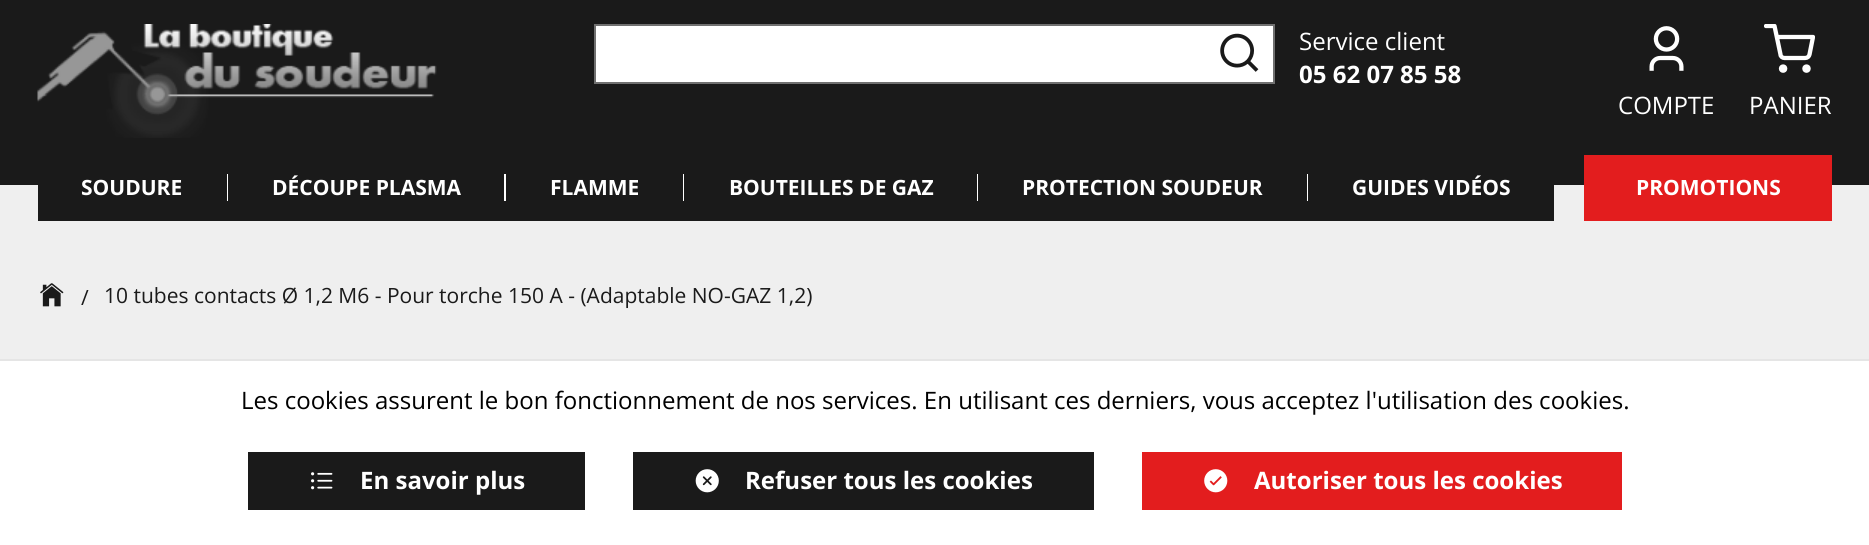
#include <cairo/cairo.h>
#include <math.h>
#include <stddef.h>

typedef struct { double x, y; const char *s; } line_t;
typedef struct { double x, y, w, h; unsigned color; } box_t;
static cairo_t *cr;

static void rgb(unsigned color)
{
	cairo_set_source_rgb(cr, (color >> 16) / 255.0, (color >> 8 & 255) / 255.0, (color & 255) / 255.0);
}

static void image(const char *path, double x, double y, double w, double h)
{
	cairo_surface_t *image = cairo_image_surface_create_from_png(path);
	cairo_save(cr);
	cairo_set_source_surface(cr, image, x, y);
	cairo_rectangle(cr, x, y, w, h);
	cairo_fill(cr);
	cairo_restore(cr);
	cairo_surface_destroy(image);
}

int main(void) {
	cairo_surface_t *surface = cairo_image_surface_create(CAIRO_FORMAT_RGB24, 1869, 545);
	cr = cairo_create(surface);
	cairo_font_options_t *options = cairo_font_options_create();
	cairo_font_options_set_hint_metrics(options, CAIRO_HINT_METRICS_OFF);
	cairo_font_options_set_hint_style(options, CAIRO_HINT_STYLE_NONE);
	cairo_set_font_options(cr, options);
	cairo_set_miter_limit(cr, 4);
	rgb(0xefefef);
	cairo_paint(cr);
	rgb(0x1a1a1a);
	cairo_rectangle(cr, 0, 0, 1869, 185);
	cairo_fill(cr);
	image("img/1.png", 37, 24, 400, 114);
	rgb(0xffffff);
	cairo_rectangle(cr, 595, 25, 679, 58);
	cairo_fill_preserve(cr);
	rgb(0x707070);
	cairo_stroke(cr);
	image("img/2.png", 1220, 33, 39, 39);
	image("img/3.png", 1649, 26, 35, 45);
	cairo_arc(cr, 1783.1, 68.6, 2.1, 0, 2 * M_PI);
	rgb(0xffffff);
	cairo_set_line_width(cr, 4.3);
	cairo_stroke(cr);
	cairo_arc(cr, 1806.5, 68.6, 2.1, 0, 2 * M_PI);
	cairo_stroke(cr);
	cairo_save(cr);
	cairo_rectangle(cr, 1764, 24, 51, 51);
	cairo_clip(cr);
	cairo_new_path(cr);
	cairo_move_to(cr, 1766, 26);
	cairo_line_to(cr, 1774.5, 26);
	cairo_line_to(cr, 1780.5, 54.5);
	cairo_curve_to(cr, 1780.5, 56.5, 1782.5, 58, 1784.5, 58);
	cairo_line_to(cr, 1805, 58);
	cairo_curve_to(cr, 1807.5, 58, 1809, 56.5, 1809.5, 54.5);
	cairo_line_to(cr, 1813, 37);
	cairo_line_to(cr, 1777, 37);
	cairo_set_line_cap(cr, CAIRO_LINE_CAP_ROUND);
	cairo_set_line_join(cr, CAIRO_LINE_JOIN_ROUND);
	cairo_stroke(cr);
	cairo_restore(cr);
	{
		static const box_t items[] = {
			{38, 185, 1516, 36, 0x1a1a1a},
			{227, 174, 1, 27, 0xffffff},
			{504, 174, 2, 27, 0xffffff},
			{683, 174, 1, 27, 0xffffff},
			{977, 174, 1, 27, 0xffffff},
			{1307, 174, 1, 27, 0xffffff},
			{1584, 155, 248, 66, 0xe31d1e},
		};
		for (size_t i = 0; i < sizeof items / sizeof *items; i++) {
			rgb(items[i].color);
			cairo_rectangle(cr, items[i].x, items[i].y, items[i].w, items[i].h);
			cairo_fill(cr);
		}
	}
	image("img/4.png", 40, 283, 24, 24);
	{
		static const box_t items[] = {
			{0, 361, 1869, 184, 0xffffff},
			{0, 359, 1869, 2, 0xe5e5e5},
			{248, 452, 337, 58, 0x1a1a1a},
		};
		for (size_t i = 0; i < sizeof items / sizeof *items; i++) {
			rgb(items[i].color);
			cairo_rectangle(cr, items[i].x, items[i].y, items[i].w, items[i].h);
			cairo_fill(cr);
		}
	}
	image("img/5.png", 311, 472, 22, 18);
	cairo_rectangle(cr, 633, 452, 461, 58);
	cairo_fill(cr);
	image("img/6.png", 695, 469, 24, 24);
	rgb(0xe31d1e);
	cairo_rectangle(cr, 1142, 452, 480, 58);
	cairo_fill(cr);
	image("img/7.png", 1204, 469, 24, 24);
	cairo_select_font_face(cr, "Open Sans", CAIRO_FONT_SLANT_NORMAL, CAIRO_FONT_WEIGHT_NORMAL);
	cairo_set_font_size(cr, 24.02);
	rgb(0xffffff);
	cairo_move_to(cr, 1299, 50);
	cairo_show_text(cr, "Service client");
	cairo_select_font_face(cr, "Open Sans", CAIRO_FONT_SLANT_NORMAL, CAIRO_FONT_WEIGHT_BOLD);
	cairo_move_to(cr, 1299, 83);
	cairo_show_text(cr, "05 62 07 85 58");
	cairo_select_font_face(cr, "Open Sans", CAIRO_FONT_SLANT_NORMAL, CAIRO_FONT_WEIGHT_NORMAL);
	cairo_move_to(cr, 1618, 114);
	cairo_show_text(cr, "COMPTE");
	cairo_move_to(cr, 1749, 114);
	cairo_show_text(cr, "PANIER");
	cairo_select_font_face(cr, "Open Sans", CAIRO_FONT_SLANT_NORMAL, CAIRO_FONT_WEIGHT_BOLD);
	cairo_set_font_size(cr, 21);
	{
		static const line_t items[] = {
			{81, 195, "SOUDURE"},
			{272, 195, "DÉCOUPE PLASMA"},
			{550, 195, "FLAMME"},
			{729, 195, "BOUTEILLES DE GAZ"},
			{1022, 195, "PROTECTION SOUDEUR"},
			{1352, 195, "GUIDES VIDÉOS"},
			{1636, 195, "PROMOTIONS"},
		};
		for (size_t i = 0; i < sizeof items / sizeof *items; i++) {
			cairo_move_to(cr, items[i].x, items[i].y);
			cairo_show_text(cr, items[i].s);
		}
	}
	cairo_select_font_face(cr, "Open Sans", CAIRO_FONT_SLANT_NORMAL, CAIRO_FONT_WEIGHT_NORMAL);
	rgb(0x1a1a1a);
	cairo_move_to(cr, 81, 305);
	cairo_show_text(cr, "/");
	cairo_move_to(cr, 104, 303);
	cairo_show_text(cr, "10 tubes contacts Ø 1,2 M6 - Pour torche 150 A - (Adaptable NO-GAZ 1,2)");
	cairo_set_font_size(cr, 24.02);
	rgb(0x000000);
	cairo_move_to(cr, 241, 409);
	cairo_show_text(cr, "Les cookies assurent le bon fonctionnement de nos services. En utilisant ces derniers, vous acceptez l'utilisation des cookies.");
	cairo_select_font_face(cr, "Open Sans", CAIRO_FONT_SLANT_NORMAL, CAIRO_FONT_WEIGHT_BOLD);
	rgb(0xffffff);
	{
		static const line_t items[] = {
			{360, 489, "En savoir plus"},
			{745, 489, "Refuser tous les cookies"},
			{1254, 489, "Autoriser tous les cookies"},
		};
		for (size_t i = 0; i < sizeof items / sizeof *items; i++) {
			cairo_move_to(cr, items[i].x, items[i].y);
			cairo_show_text(cr, items[i].s);
		}
	}
	cairo_surface_write_to_png(surface, "page.png");
	cairo_font_options_destroy(options);
	cairo_destroy(cr);
	cairo_surface_destroy(surface);
	return 0;
}
